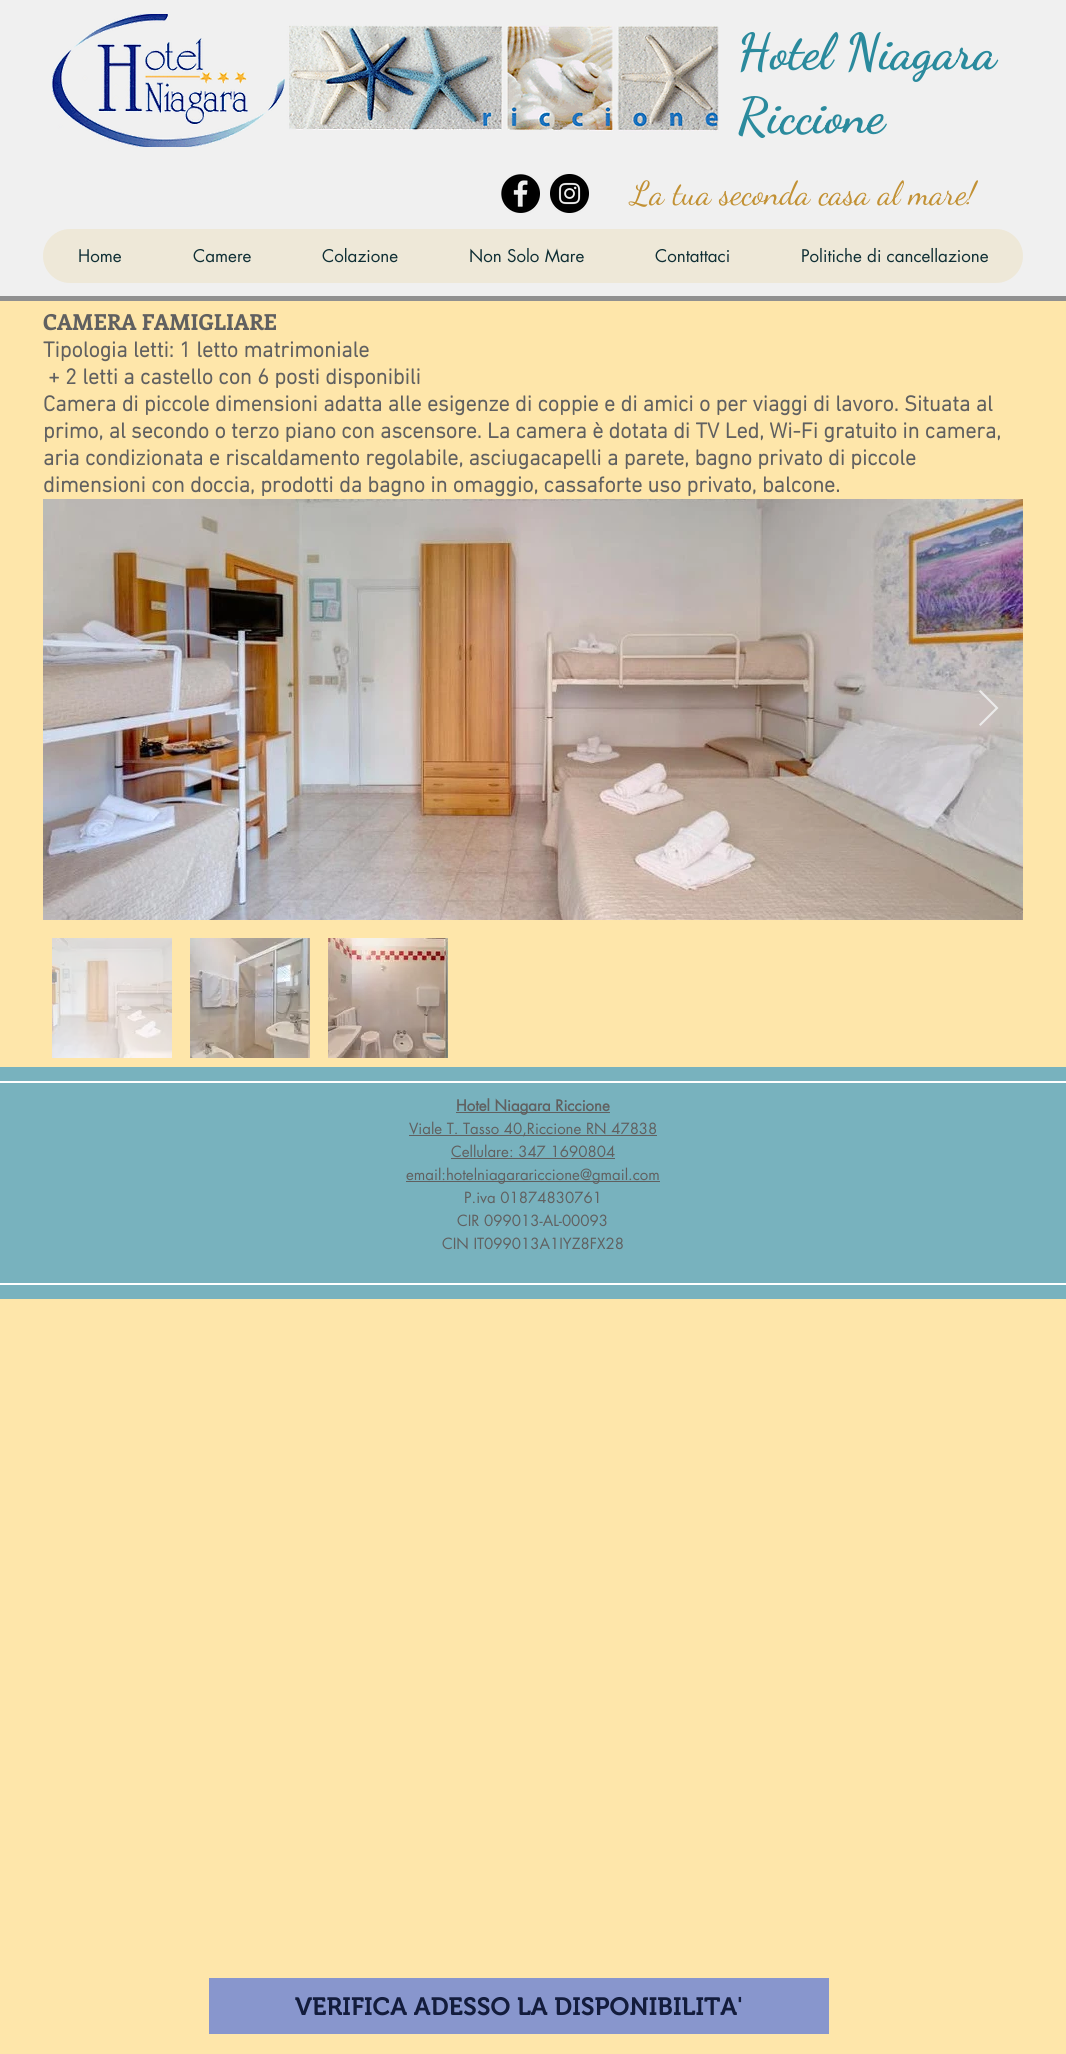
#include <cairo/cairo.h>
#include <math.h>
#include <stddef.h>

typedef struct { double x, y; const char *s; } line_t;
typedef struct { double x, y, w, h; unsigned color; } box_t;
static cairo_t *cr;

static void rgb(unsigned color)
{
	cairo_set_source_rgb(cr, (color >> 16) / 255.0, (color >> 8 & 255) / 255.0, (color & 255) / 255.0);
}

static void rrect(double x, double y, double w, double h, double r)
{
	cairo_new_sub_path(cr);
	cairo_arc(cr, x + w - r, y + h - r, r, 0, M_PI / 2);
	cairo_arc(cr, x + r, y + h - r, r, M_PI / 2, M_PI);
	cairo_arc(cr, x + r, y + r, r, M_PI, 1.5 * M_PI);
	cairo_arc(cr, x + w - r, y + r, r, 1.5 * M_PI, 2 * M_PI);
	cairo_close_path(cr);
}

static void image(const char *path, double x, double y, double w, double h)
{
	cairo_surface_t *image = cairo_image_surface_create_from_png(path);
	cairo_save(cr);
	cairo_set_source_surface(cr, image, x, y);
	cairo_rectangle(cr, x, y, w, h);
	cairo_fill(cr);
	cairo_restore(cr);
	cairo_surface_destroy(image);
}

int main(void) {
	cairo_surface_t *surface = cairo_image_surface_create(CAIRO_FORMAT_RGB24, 1066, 2054);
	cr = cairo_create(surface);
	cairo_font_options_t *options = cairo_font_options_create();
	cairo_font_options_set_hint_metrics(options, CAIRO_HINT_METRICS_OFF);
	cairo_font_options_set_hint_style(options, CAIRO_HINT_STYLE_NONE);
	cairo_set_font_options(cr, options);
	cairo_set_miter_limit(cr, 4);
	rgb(0xfee6aa);
	cairo_paint(cr);
	rgb(0xf0f0f0);
	cairo_rectangle(cr, 0, 0, 1066, 296);
	cairo_fill(cr);
	rgb(0x909090);
	cairo_rectangle(cr, 0, 296, 1066, 5);
	cairo_fill(cr);
	image("img/1.png", 51, 14, 668, 133);
	image("img/2.png", 501, 174, 39, 39);
	image("img/3.png", 550, 174, 39, 39);
	rgb(0xeee8d8);
	rrect(43, 229, 980, 54, 27);
	cairo_fill(cr);
	image("img/4.png", 43, 499, 980, 421);
	cairo_set_source_rgba(cr, 0.941, 0.941, 0.941, 0.9);
	cairo_new_path(cr);
	cairo_move_to(cr, 979, 691.5);
	cairo_line_to(cr, 980.5, 690);
	cairo_line_to(cr, 998.5, 708);
	cairo_line_to(cr, 980.5, 726);
	cairo_line_to(cr, 979, 724.5);
	cairo_line_to(cr, 995.5, 708);
	cairo_close_path(cr);
	cairo_fill(cr);
	image("img/5.png", 52, 938, 120, 120);
	image("img/6.png", 190, 938, 120, 120);
	image("img/7.png", 328, 938, 120, 120);
	{
		static const box_t items[] = {
			{0, 1067, 1066, 232, 0x78b2be},
			{0, 1081, 1066, 2, 0xffffff},
			{0, 1283, 1066, 2, 0xffffff},
			{456, 1112, 154, 1, 0x606060},
			{409, 1135, 248, 1, 0x606060},
			{451, 1158, 164, 1, 0x606060},
			{406, 1181, 254, 1, 0x606060},
			{209, 1978, 620, 56, 0x8896cd},
		};
		for (size_t i = 0; i < sizeof items / sizeof *items; i++) {
			rgb(items[i].color);
			cairo_rectangle(cr, items[i].x, items[i].y, items[i].w, items[i].h);
			cairo_fill(cr);
		}
	}
	cairo_select_font_face(cr, "Dancing Script", CAIRO_FONT_SLANT_NORMAL, CAIRO_FONT_WEIGHT_BOLD);
	cairo_set_font_size(cr, 50);
	rgb(0x2a8a9d);
	cairo_move_to(cr, 737, 68);
	cairo_show_text(cr, "Hotel Niagara");
	cairo_move_to(cr, 737, 132);
	cairo_show_text(cr, "Riccione");
	cairo_select_font_face(cr, "Dancing Script", CAIRO_FONT_SLANT_NORMAL, CAIRO_FONT_WEIGHT_NORMAL);
	cairo_set_font_size(cr, 33);
	rgb(0xc29134);
	cairo_move_to(cr, 631, 204);
	cairo_show_text(cr, "La tua seconda casa al mare!");
	cairo_select_font_face(cr, "futura", CAIRO_FONT_SLANT_NORMAL, CAIRO_FONT_WEIGHT_NORMAL);
	cairo_set_font_size(cr, 17);
	rgb(0x0e2e34);
	{
		static const line_t items[] = {
			{78, 262, "Home"},
			{193, 262, "Camere"},
			{322, 262, "Colazione"},
			{469, 262, "Non Solo Mare"},
			{655, 262, "Contattaci"},
			{801, 262, "Politiche di cancellazione"},
		};
		for (size_t i = 0; i < sizeof items / sizeof *items; i++) {
			cairo_move_to(cr, items[i].x, items[i].y);
			cairo_show_text(cr, items[i].s);
		}
	}
	cairo_select_font_face(cr, "Enriqueta", CAIRO_FONT_SLANT_NORMAL, CAIRO_FONT_WEIGHT_BOLD);
	cairo_set_font_size(cr, 22);
	rgb(0x606060);
	cairo_move_to(cr, 43, 330);
	cairo_show_text(cr, "CAMERA FAMIGLIARE");
	cairo_select_font_face(cr, "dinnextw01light", CAIRO_FONT_SLANT_NORMAL, CAIRO_FONT_WEIGHT_BOLD);
	{
		static const line_t items[] = {
			{43, 357, "Tipologia letti: 1 letto matrimoniale"},
			{48, 384, "+ 2 letti a castello con 6 posti disponibili"},
			{43, 411, "Camera di piccole dimensioni adatta alle esigenze di coppie e di amici o per viaggi di lavoro. Situata al"},
			{43, 438, "primo, al secondo o terzo piano con ascensore. La camera è dotata di TV Led, Wi-Fi gratuito in camera,"},
			{43, 465, "aria condizionata e riscaldamento regolabile, asciugacapelli a parete, bagno privato di piccole"},
			{43, 492, "dimensioni con doccia, prodotti da bagno in omaggio, cassaforte uso privato, balcone."},
		};
		for (size_t i = 0; i < sizeof items / sizeof *items; i++) {
			cairo_move_to(cr, items[i].x, items[i].y);
			cairo_show_text(cr, items[i].s);
		}
	}
	cairo_select_font_face(cr, "futura", CAIRO_FONT_SLANT_NORMAL, CAIRO_FONT_WEIGHT_BOLD);
	cairo_set_font_size(cr, 15);
	cairo_move_to(cr, 456, 1111);
	cairo_show_text(cr, "Hotel Niagara Riccione");
	cairo_select_font_face(cr, "futura", CAIRO_FONT_SLANT_NORMAL, CAIRO_FONT_WEIGHT_NORMAL);
	{
		static const line_t items[] = {
			{409, 1134, "Viale T. Tasso 40,Riccione RN 47838"},
			{451, 1157, "Cellulare: 347 1690804"},
			{406, 1180, "email:hotelniagarariccione@gmail.com"},
			{464, 1203, "P.iva 01874830761"},
			{457, 1226, "CIR 099013-AL-00093"},
			{442, 1249, "CIN IT099013A1IYZ8FX28"},
		};
		for (size_t i = 0; i < sizeof items / sizeof *items; i++) {
			cairo_move_to(cr, items[i].x, items[i].y);
			cairo_show_text(cr, items[i].s);
		}
	}
	cairo_select_font_face(cr, "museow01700 SemiBold", CAIRO_FONT_SLANT_NORMAL, CAIRO_FONT_WEIGHT_NORMAL);
	cairo_set_font_size(cr, 25);
	rgb(0x131c3c);
	cairo_move_to(cr, 295, 2015);
	cairo_show_text(cr, "VERIFICA ADESSO LA DISPONIBILITA'");
	cairo_surface_write_to_png(surface, "page.png");
	cairo_font_options_destroy(options);
	cairo_destroy(cr);
	cairo_surface_destroy(surface);
	return 0;
}
